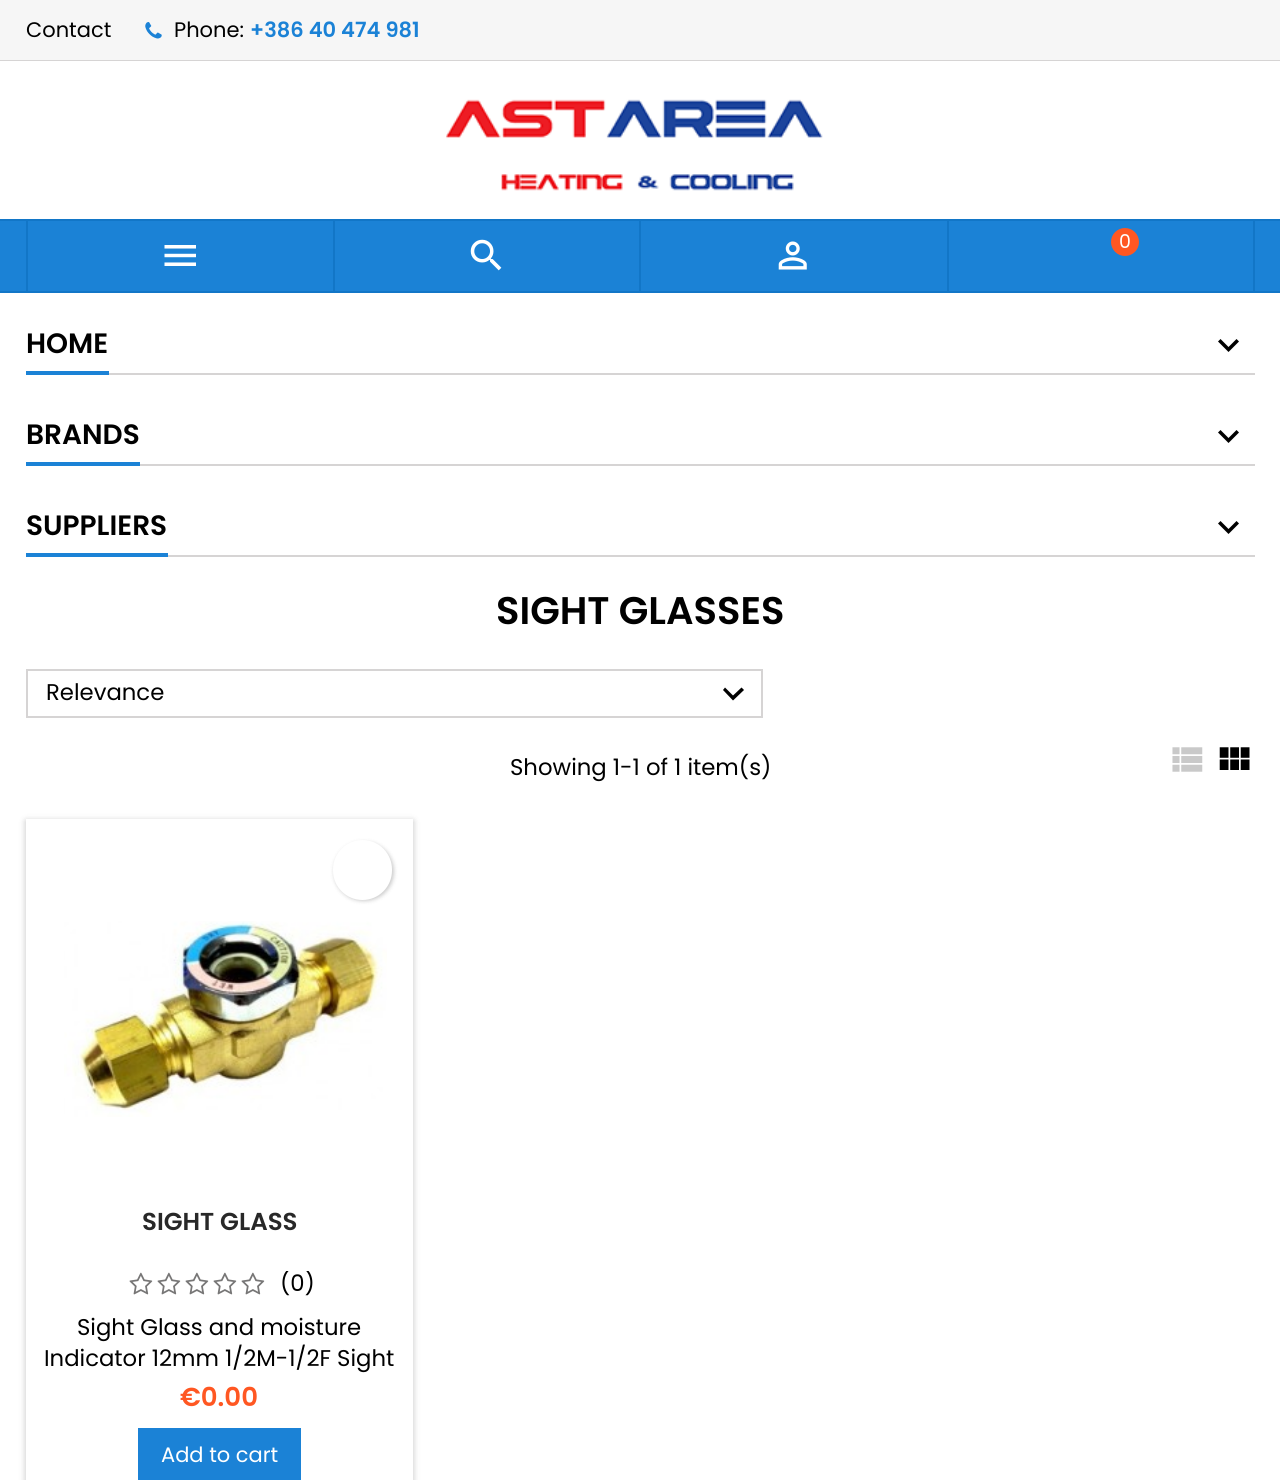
#include <cairo/cairo.h>
#include <math.h>
#include <stddef.h>

typedef struct { double x, y; const char *s; } line_t;
typedef struct { double x, y, w, h; unsigned color; } box_t;
static cairo_t *cr;

static void rgb(unsigned color)
{
	cairo_set_source_rgb(cr, (color >> 16) / 255.0, (color >> 8 & 255) / 255.0, (color & 255) / 255.0);
}

static void rrect(double x, double y, double w, double h, double r)
{
	cairo_new_sub_path(cr);
	cairo_arc(cr, x + w - r, y + h - r, r, 0, M_PI / 2);
	cairo_arc(cr, x + r, y + h - r, r, M_PI / 2, M_PI);
	cairo_arc(cr, x + r, y + r, r, M_PI, 1.5 * M_PI);
	cairo_arc(cr, x + w - r, y + r, r, 1.5 * M_PI, 2 * M_PI);
	cairo_close_path(cr);
}

static void soft_shadow(double x, double y, double w, double h, double r, double blur, double alpha)
{
	cairo_push_group_with_content(cr, CAIRO_CONTENT_ALPHA);
	cairo_set_operator(cr, CAIRO_OPERATOR_SOURCE);
	for (int i = 15; i >= -15 && fmin(w, h) + blur * i / 3 > 0; i -= 2) {
		double e = blur * i / 6;
		cairo_set_source_rgba(cr, 0, 0, 0, alpha * erfc((i - 1) / 8.5) / 2);
		rrect(x - e, y - e, w + 2 * e, h + 2 * e, fmax(0, fmin(r + e + blur * .6, fmin(w, h) / 2 + e)));
		cairo_fill(cr);
	}
	cairo_pattern_t *soft = cairo_pop_group(cr);
	cairo_mask(cr, soft);
	cairo_pattern_destroy(soft);
}

static void image(const char *path, double x, double y, double w, double h)
{
	cairo_surface_t *image = cairo_image_surface_create_from_png(path);
	cairo_save(cr);
	cairo_set_source_surface(cr, image, x, y);
	cairo_rectangle(cr, x, y, w, h);
	cairo_fill(cr);
	cairo_restore(cr);
	cairo_surface_destroy(image);
}

int main(void) {
	cairo_surface_t *surface = cairo_image_surface_create(CAIRO_FORMAT_RGB24, 1280, 1480);
	cr = cairo_create(surface);
	cairo_font_options_t *options = cairo_font_options_create();
	cairo_font_options_set_hint_metrics(options, CAIRO_HINT_METRICS_OFF);
	cairo_font_options_set_hint_style(options, CAIRO_HINT_STYLE_NONE);
	cairo_set_font_options(cr, options);
	cairo_set_miter_limit(cr, 4);
	rgb(0xffffff);
	cairo_paint(cr);
	rgb(0xf6f6f6);
	cairo_rectangle(cr, 0, 0, 1280, 60);
	cairo_fill(cr);
	rgb(0xd6d4d4);
	cairo_rectangle(cr, 0, 60, 1280, 1);
	cairo_fill(cr);
	image("img/1.png", 145, 22, 17, 17);
	image("img/2.png", 446, 99, 377, 92);
	{
		static const box_t items[] = {
			{0, 221, 1280, 70, 0x1b82d6},
			{0, 219, 1280, 2, 0x1276c7},
			{0, 291, 1280, 2, 0x1276c7},
			{333, 221, 2, 70, 0x1276c7},
			{26, 221, 2, 70, 0x1276c7},
		};
		for (size_t i = 0; i < sizeof items / sizeof *items; i++) {
			rgb(items[i].color);
			cairo_rectangle(cr, items[i].x, items[i].y, items[i].w, items[i].h);
			cairo_fill(cr);
		}
	}
	image("img/3.png", 164, 245, 32, 21);
	cairo_rectangle(cr, 639, 221, 2, 70);
	cairo_fill(cr);
	image("img/4.png", 470, 239, 32, 32);
	cairo_rectangle(cr, 947, 221, 2, 70);
	cairo_fill(cr);
	image("img/5.png", 778, 241, 29, 29);
	cairo_rectangle(cr, 1253, 221, 2, 70);
	cairo_fill(cr);
	rgb(0xff5722);
	cairo_arc(cr, 1125, 242, 14, 0, 2 * M_PI);
	cairo_fill(cr);
	rgb(0xd6d4d4);
	cairo_rectangle(cr, 109, 373, 1146, 2);
	cairo_fill(cr);
	rgb(0x1b82d6);
	cairo_rectangle(cr, 26, 371, 83, 4);
	cairo_fill(cr);
	rgb(0x000000);
	cairo_new_path(cr);
	cairo_move_to(cr, 1220.5, 339);
	cairo_line_to(cr, 1228.5, 347);
	cairo_line_to(cr, 1236.5, 339);
	cairo_line_to(cr, 1239, 341.5);
	cairo_line_to(cr, 1228.5, 352);
	cairo_line_to(cr, 1218, 341.5);
	cairo_close_path(cr);
	cairo_fill(cr);
	rgb(0xd6d4d4);
	cairo_rectangle(cr, 140, 464, 1115, 2);
	cairo_fill(cr);
	rgb(0x1b82d6);
	cairo_rectangle(cr, 26, 462, 114, 4);
	cairo_fill(cr);
	rgb(0x000000);
	cairo_new_path(cr);
	cairo_move_to(cr, 1220.5, 430);
	cairo_line_to(cr, 1228.5, 438);
	cairo_line_to(cr, 1236.5, 430);
	cairo_line_to(cr, 1239, 432.5);
	cairo_line_to(cr, 1228.5, 443);
	cairo_line_to(cr, 1218, 432.5);
	cairo_close_path(cr);
	cairo_fill(cr);
	rgb(0xd6d4d4);
	cairo_rectangle(cr, 168, 555, 1087, 2);
	cairo_fill(cr);
	rgb(0x1b82d6);
	cairo_rectangle(cr, 26, 553, 142, 4);
	cairo_fill(cr);
	rgb(0x000000);
	cairo_new_path(cr);
	cairo_move_to(cr, 1220.5, 521);
	cairo_line_to(cr, 1228.5, 529);
	cairo_line_to(cr, 1236.5, 521);
	cairo_line_to(cr, 1239, 523.5);
	cairo_line_to(cr, 1228.5, 534);
	cairo_line_to(cr, 1218, 523.5);
	cairo_close_path(cr);
	cairo_fill(cr);
	cairo_rectangle(cr, 27, 670, 735, 47);
	rgb(0xd6d4d4);
	cairo_stroke(cr);
	rgb(0x000000);
	cairo_new_path(cr);
	cairo_move_to(cr, 725, 687.5);
	cairo_line_to(cr, 733, 695.5);
	cairo_line_to(cr, 741.5, 687.5);
	cairo_line_to(cr, 744, 690);
	cairo_line_to(cr, 733, 700.5);
	cairo_line_to(cr, 723, 690);
	cairo_close_path(cr);
	cairo_fill(cr);
	image("img/6.png", 1172, 747, 31, 25);
	image("img/7.png", 1219, 747, 31, 23);
	rgb(0x000000);
	soft_shadow(26, 821, 387, 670, 0, 3.5, 0.24);
	rgb(0xffffff);
	cairo_rectangle(cr, 26, 819, 387, 661);
	cairo_fill(cr);
	rgb(0x000000);
	soft_shadow(334, 842, 60, 59, 29.5, 2, 0.2);
	rgb(0xffffff);
	rrect(333, 840, 59, 60, 29.5);
	cairo_fill(cr);
	image("img/8.png", 64, 921, 323, 196);
	image("img/9.png", 129, 1272, 24, 23);
	image("img/9.png", 157, 1272, 24, 23);
	image("img/9.png", 185, 1272, 24, 23);
	image("img/9.png", 213, 1272, 24, 23);
	image("img/9.png", 241, 1272, 24, 23);
	rgb(0x1b82d6);
	cairo_rectangle(cr, 138, 1428, 163, 52);
	cairo_fill(cr);
	cairo_select_font_face(cr, "Poppins", CAIRO_FONT_SLANT_NORMAL, CAIRO_FONT_WEIGHT_NORMAL);
	cairo_set_font_size(cr, 21);
	rgb(0x000000);
	cairo_move_to(cr, 26, 37);
	cairo_show_text(cr, "Contact");
	cairo_move_to(cr, 174, 37);
	cairo_show_text(cr, "Phone:");
	cairo_select_font_face(cr, "Poppins SemiBold", CAIRO_FONT_SLANT_NORMAL, CAIRO_FONT_WEIGHT_NORMAL);
	rgb(0x1b82d6);
	cairo_move_to(cr, 250, 37);
	cairo_show_text(cr, "+386 40 474 981");
	cairo_select_font_face(cr, "Poppins", CAIRO_FONT_SLANT_NORMAL, CAIRO_FONT_WEIGHT_NORMAL);
	cairo_set_font_size(cr, 19);
	rgb(0xffffff);
	cairo_move_to(cr, 1119, 248);
	cairo_show_text(cr, "0");
	cairo_select_font_face(cr, "Poppins SemiBold", CAIRO_FONT_SLANT_NORMAL, CAIRO_FONT_WEIGHT_NORMAL);
	cairo_set_font_size(cr, 28);
	rgb(0x000000);
	{
		static const line_t items[] = {
			{26, 353, "HOME"},
			{26, 444, "BRANDS"},
			{26, 535, "SUPPLIERS"},
		};
		for (size_t i = 0; i < sizeof items / sizeof *items; i++) {
			cairo_move_to(cr, items[i].x, items[i].y);
			cairo_show_text(cr, items[i].s);
		}
	}
	cairo_set_font_size(cr, 38.5);
	cairo_move_to(cr, 496, 624);
	cairo_show_text(cr, "SIGHT GLASSES");
	cairo_select_font_face(cr, "Poppins", CAIRO_FONT_SLANT_NORMAL, CAIRO_FONT_WEIGHT_NORMAL);
	cairo_set_font_size(cr, 22.75);
	cairo_move_to(cr, 46, 700);
	cairo_show_text(cr, "Relevance");
	cairo_move_to(cr, 510, 775);
	cairo_show_text(cr, "Showing 1-1 of 1 item(s)");
	cairo_select_font_face(cr, "Poppins SemiBold", CAIRO_FONT_SLANT_NORMAL, CAIRO_FONT_WEIGHT_NORMAL);
	cairo_set_font_size(cr, 24.5);
	rgb(0x282828);
	cairo_move_to(cr, 142, 1230);
	cairo_show_text(cr, "SIGHT GLASS");
	cairo_save(cr);
	cairo_rectangle(cr, 277, 1271, 38, 28);
	cairo_clip(cr);
	cairo_select_font_face(cr, "Poppins", CAIRO_FONT_SLANT_NORMAL, CAIRO_FONT_WEIGHT_NORMAL);
	cairo_set_font_size(cr, 22.75);
	rgb(0x000000);
	cairo_move_to(cr, 280, 1291);
	cairo_show_text(cr, "(0)");
	cairo_restore(cr);
	cairo_select_font_face(cr, "Poppins", CAIRO_FONT_SLANT_NORMAL, CAIRO_FONT_WEIGHT_NORMAL);
	cairo_set_font_size(cr, 22.75);
	rgb(0x000000);
	cairo_move_to(cr, 77, 1335);
	cairo_show_text(cr, "Sight Glass and moisture");
	cairo_move_to(cr, 44, 1366);
	cairo_show_text(cr, "Indicator 12mm 1/2M-1/2F Sight");
	cairo_select_font_face(cr, "Poppins SemiBold", CAIRO_FONT_SLANT_NORMAL, CAIRO_FONT_WEIGHT_NORMAL);
	cairo_set_font_size(cr, 26);
	rgb(0xff5722);
	cairo_move_to(cr, 180, 1406);
	cairo_show_text(cr, "€0.00");
	cairo_select_font_face(cr, "Poppins", CAIRO_FONT_SLANT_NORMAL, CAIRO_FONT_WEIGHT_NORMAL);
	cairo_set_font_size(cr, 21);
	rgb(0xffffff);
	cairo_move_to(cr, 161, 1462);
	cairo_show_text(cr, "Add to cart");
	cairo_surface_write_to_png(surface, "page.png");
	cairo_font_options_destroy(options);
	cairo_destroy(cr);
	cairo_surface_destroy(surface);
	return 0;
}
